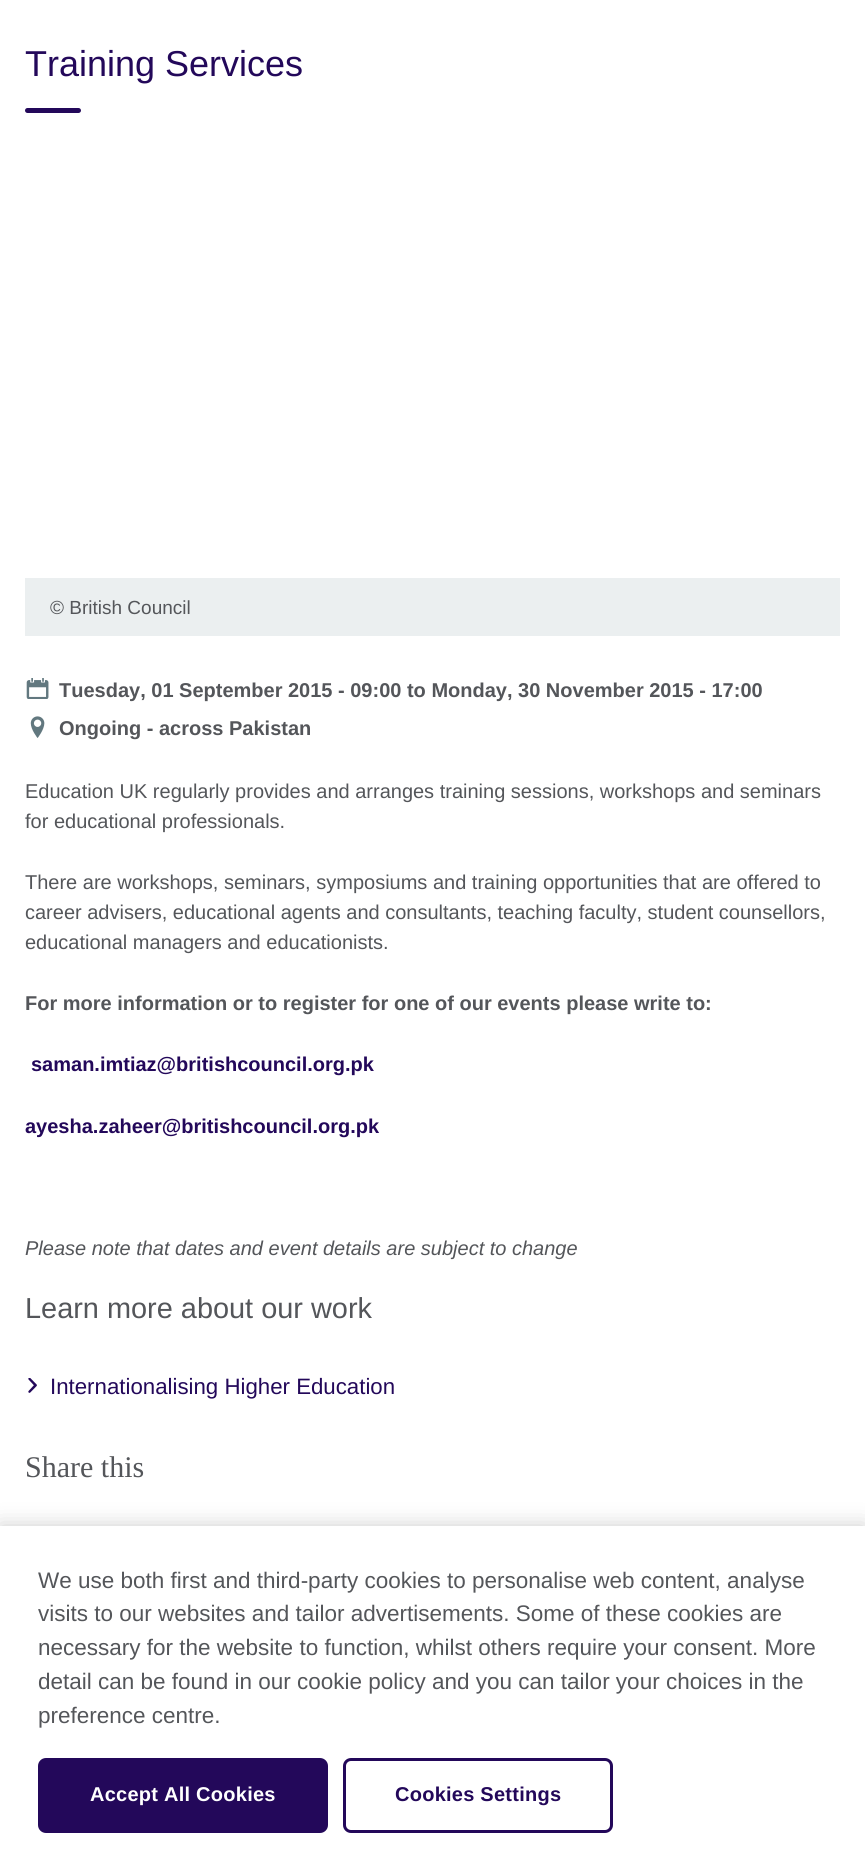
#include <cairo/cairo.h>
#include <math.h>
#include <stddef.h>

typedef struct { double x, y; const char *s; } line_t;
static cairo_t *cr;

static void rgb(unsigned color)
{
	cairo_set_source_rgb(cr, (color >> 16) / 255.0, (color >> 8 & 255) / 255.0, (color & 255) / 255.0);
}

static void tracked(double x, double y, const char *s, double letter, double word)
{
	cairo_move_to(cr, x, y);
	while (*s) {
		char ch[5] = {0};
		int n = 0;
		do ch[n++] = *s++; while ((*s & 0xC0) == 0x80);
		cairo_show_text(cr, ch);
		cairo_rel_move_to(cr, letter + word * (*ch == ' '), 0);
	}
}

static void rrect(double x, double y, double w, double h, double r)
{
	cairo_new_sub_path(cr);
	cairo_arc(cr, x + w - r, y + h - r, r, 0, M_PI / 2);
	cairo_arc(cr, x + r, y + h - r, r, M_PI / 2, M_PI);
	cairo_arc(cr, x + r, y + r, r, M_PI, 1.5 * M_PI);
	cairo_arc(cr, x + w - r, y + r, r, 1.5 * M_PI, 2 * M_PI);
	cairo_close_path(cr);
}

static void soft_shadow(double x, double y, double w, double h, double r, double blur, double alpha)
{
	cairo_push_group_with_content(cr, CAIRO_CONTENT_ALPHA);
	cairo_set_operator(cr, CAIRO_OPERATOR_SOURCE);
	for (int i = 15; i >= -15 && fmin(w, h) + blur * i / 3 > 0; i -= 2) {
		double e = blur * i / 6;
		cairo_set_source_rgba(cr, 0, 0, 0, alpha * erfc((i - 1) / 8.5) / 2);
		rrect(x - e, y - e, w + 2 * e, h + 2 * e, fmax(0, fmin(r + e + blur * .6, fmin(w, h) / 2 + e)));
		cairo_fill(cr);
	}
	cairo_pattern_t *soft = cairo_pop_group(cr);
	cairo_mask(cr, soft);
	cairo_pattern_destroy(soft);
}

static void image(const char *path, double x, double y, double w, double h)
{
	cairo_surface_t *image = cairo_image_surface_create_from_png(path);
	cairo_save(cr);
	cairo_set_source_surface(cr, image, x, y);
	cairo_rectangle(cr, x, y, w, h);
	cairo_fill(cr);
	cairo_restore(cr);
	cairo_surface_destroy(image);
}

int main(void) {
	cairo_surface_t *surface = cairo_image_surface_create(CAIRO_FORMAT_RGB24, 865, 1874);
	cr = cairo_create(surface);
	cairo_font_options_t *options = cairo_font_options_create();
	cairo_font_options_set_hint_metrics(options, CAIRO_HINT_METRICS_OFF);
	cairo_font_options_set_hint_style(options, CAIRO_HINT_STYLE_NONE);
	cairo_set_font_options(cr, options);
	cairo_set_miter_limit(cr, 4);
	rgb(0xffffff);
	cairo_paint(cr);
	rgb(0x23085a);
	rrect(25, 108, 56, 5, 2.5);
	cairo_fill(cr);
	rgb(0xebeff0);
	cairo_rectangle(cr, 25, 578, 815, 58);
	cairo_fill(cr);
	image("img/1.png", 26, 678, 23, 21);
	image("img/2.png", 30, 716, 15, 22);
	image("img/3.png", 28, 1378, 9, 15);
	rgb(0x000000);
	soft_shadow(0, 1526, 865, 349, 0, 11, 0.2);
	rgb(0xffffff);
	cairo_rectangle(cr, 0, 1526, 865, 348);
	cairo_fill(cr);
	rgb(0x23085a);
	rrect(39.5, 1759.5, 287, 72, 6.5);
	cairo_fill_preserve(cr);
	cairo_set_line_width(cr, 3);
	cairo_stroke(cr);
	rrect(344.5, 1759.5, 267, 72, 6.5);
	cairo_stroke(cr);
	cairo_select_font_face(cr, "Liberation Sans", CAIRO_FONT_SLANT_NORMAL, CAIRO_FONT_WEIGHT_NORMAL);
	cairo_set_font_size(cr, 36);
	cairo_move_to(cr, 25, 76);
	cairo_show_text(cr, "Training Services");
	cairo_set_font_size(cr, 19);
	rgb(0x54565a);
	cairo_move_to(cr, 50, 614);
	cairo_show_text(cr, "© British Council");
	cairo_select_font_face(cr, "Liberation Sans", CAIRO_FONT_SLANT_NORMAL, CAIRO_FONT_WEIGHT_BOLD);
	cairo_set_font_size(cr, 20);
	cairo_move_to(cr, 59, 697);
	cairo_show_text(cr, "Tuesday, 01 September 2015 - 09:00 to Monday, 30 November 2015 - 17:00");
	cairo_move_to(cr, 59, 735);
	cairo_show_text(cr, "Ongoing - across Pakistan");
	cairo_select_font_face(cr, "Liberation Sans", CAIRO_FONT_SLANT_NORMAL, CAIRO_FONT_WEIGHT_NORMAL);
	{
		static const line_t items[] = {
			{25, 798, "Education UK regularly provides and arranges training sessions, workshops and seminars"},
			{25, 828, "for educational professionals."},
			{25, 889, "There are workshops, seminars, symposiums and training opportunities that are offered to"},
			{25, 919, "career advisers, educational agents and consultants, teaching faculty, student counsellors,"},
			{25, 949, "educational managers and educationists."},
		};
		for (size_t i = 0; i < sizeof items / sizeof *items; i++) {
			cairo_move_to(cr, items[i].x, items[i].y);
			cairo_show_text(cr, items[i].s);
		}
	}
	cairo_select_font_face(cr, "Liberation Sans", CAIRO_FONT_SLANT_NORMAL, CAIRO_FONT_WEIGHT_BOLD);
	cairo_move_to(cr, 25, 1010);
	cairo_show_text(cr, "For more information or to register for one of our events please write to:");
	rgb(0x23085a);
	cairo_move_to(cr, 31, 1071);
	cairo_show_text(cr, "saman.imtiaz@britishcouncil.org.pk");
	cairo_move_to(cr, 25, 1133);
	cairo_show_text(cr, "ayesha.zaheer@britishcouncil.org.pk");
	cairo_select_font_face(cr, "Liberation Sans", CAIRO_FONT_SLANT_ITALIC, CAIRO_FONT_WEIGHT_NORMAL);
	rgb(0x54565a);
	cairo_move_to(cr, 25, 1255);
	cairo_show_text(cr, "Please note that dates and event details are subject to change");
	cairo_select_font_face(cr, "Liberation Sans", CAIRO_FONT_SLANT_NORMAL, CAIRO_FONT_WEIGHT_NORMAL);
	cairo_set_font_size(cr, 28.9);
	cairo_move_to(cr, 25, 1318);
	cairo_show_text(cr, "Learn more about our work");
	cairo_set_font_size(cr, 22.25);
	rgb(0x23085a);
	cairo_move_to(cr, 50, 1394);
	cairo_show_text(cr, "Internationalising Higher Education");
	cairo_select_font_face(cr, "Liberation Serif", CAIRO_FONT_SLANT_NORMAL, CAIRO_FONT_WEIGHT_NORMAL);
	cairo_set_font_size(cr, 30);
	rgb(0x54565a);
	cairo_move_to(cr, 25, 1477);
	cairo_show_text(cr, "Share this");
	cairo_select_font_face(cr, "Liberation Sans", CAIRO_FONT_SLANT_NORMAL, CAIRO_FONT_WEIGHT_NORMAL);
	cairo_set_font_size(cr, 22.5);
	{
		static const line_t items[] = {
			{38, 1588, "We use both first and third-party cookies to personalise web content, analyse"},
			{38, 1621, "visits to our websites and tailor advertisements. Some of these cookies are"},
			{38, 1655, "necessary for the website to function, whilst others require your consent. More"},
			{38, 1689, "detail can be found in our cookie policy and you can tailor your choices in the"},
			{38, 1723, "preference centre."},
		};
		for (size_t i = 0; i < sizeof items / sizeof *items; i++) {
			cairo_move_to(cr, items[i].x, items[i].y);
			cairo_show_text(cr, items[i].s);
		}
	}
	cairo_select_font_face(cr, "Liberation Sans", CAIRO_FONT_SLANT_NORMAL, CAIRO_FONT_WEIGHT_BOLD);
	cairo_set_font_size(cr, 20);
	rgb(0xffffff);
	tracked(90, 1801, "Accept All Cookies", 0.25, 0);
	rgb(0x23085a);
	tracked(395, 1801, "Cookies Settings", 0.25, 0);
	cairo_surface_write_to_png(surface, "page.png");
	cairo_font_options_destroy(options);
	cairo_destroy(cr);
	cairo_surface_destroy(surface);
	return 0;
}
